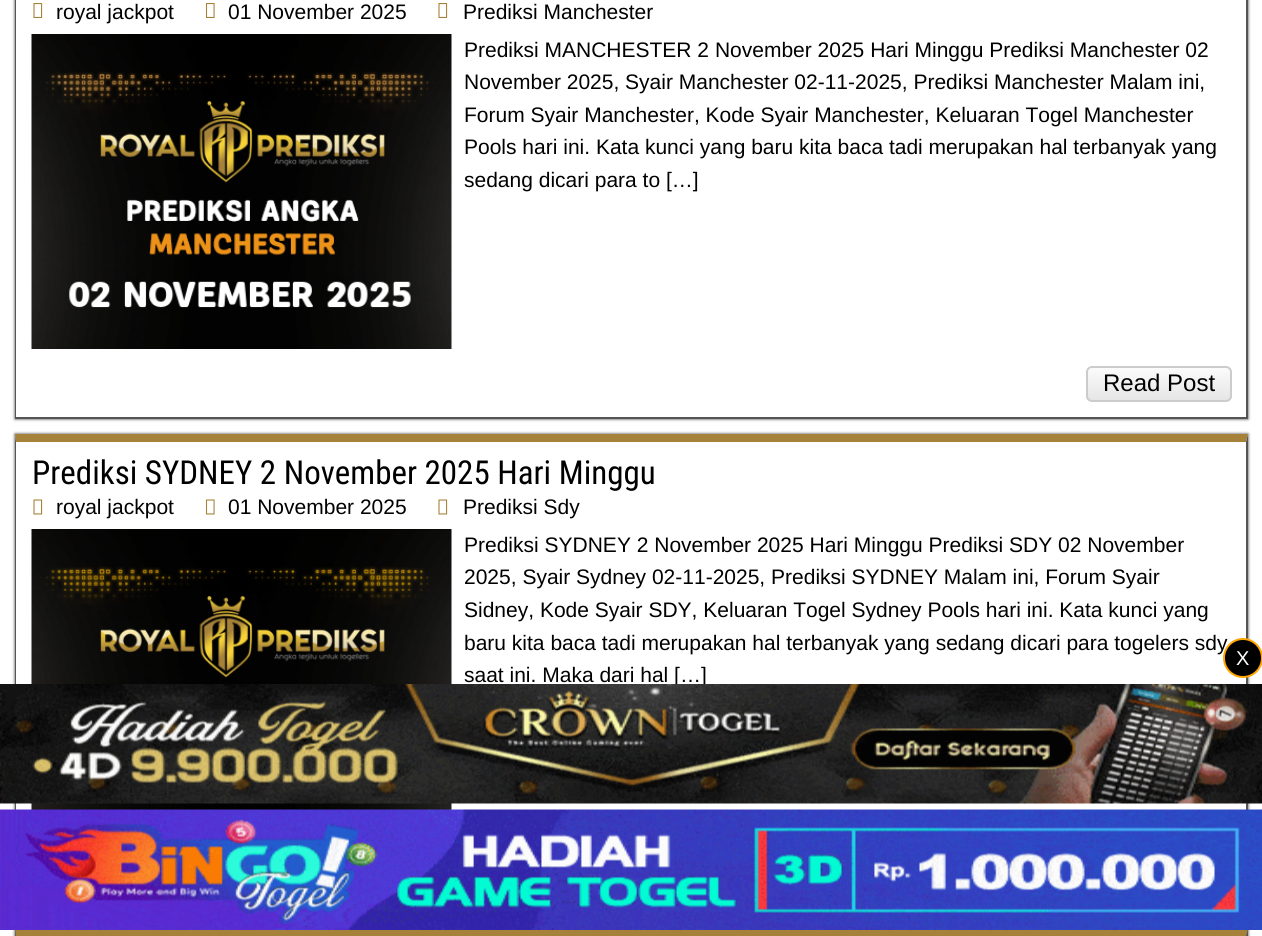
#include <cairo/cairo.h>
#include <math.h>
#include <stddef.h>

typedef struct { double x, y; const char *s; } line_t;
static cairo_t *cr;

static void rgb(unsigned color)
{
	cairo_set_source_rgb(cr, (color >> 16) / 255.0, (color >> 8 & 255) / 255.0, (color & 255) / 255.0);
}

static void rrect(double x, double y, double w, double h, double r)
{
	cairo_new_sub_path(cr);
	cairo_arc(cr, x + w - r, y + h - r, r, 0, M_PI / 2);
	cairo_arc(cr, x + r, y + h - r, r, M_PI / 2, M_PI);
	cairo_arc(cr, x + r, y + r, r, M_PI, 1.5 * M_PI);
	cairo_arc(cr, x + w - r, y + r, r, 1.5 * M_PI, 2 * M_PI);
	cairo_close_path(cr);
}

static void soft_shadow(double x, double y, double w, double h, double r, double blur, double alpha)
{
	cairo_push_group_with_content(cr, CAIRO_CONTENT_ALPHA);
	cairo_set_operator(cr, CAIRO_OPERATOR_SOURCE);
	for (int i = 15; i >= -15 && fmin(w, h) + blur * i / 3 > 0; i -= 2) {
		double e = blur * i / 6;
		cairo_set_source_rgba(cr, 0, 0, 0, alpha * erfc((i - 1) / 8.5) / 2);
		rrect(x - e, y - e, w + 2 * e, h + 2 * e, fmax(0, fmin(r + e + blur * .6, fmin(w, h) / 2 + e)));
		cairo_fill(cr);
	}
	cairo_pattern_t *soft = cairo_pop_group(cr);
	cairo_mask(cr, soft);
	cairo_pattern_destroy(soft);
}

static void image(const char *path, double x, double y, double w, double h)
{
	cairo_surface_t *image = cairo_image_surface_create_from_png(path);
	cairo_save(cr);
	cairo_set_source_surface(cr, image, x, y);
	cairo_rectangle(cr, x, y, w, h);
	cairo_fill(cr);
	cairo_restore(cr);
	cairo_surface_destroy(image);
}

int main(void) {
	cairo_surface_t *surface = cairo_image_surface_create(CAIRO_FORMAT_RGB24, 1262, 936);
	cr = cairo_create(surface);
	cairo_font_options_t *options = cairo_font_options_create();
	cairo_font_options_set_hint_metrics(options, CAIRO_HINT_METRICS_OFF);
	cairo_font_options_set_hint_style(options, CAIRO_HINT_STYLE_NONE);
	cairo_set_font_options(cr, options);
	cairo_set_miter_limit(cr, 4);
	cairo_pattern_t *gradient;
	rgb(0xffffff);
	cairo_paint(cr);
	cairo_save(cr);
	cairo_set_fill_rule(cr, CAIRO_FILL_RULE_EVEN_ODD);
	cairo_new_path(cr);
	cairo_move_to(cr, 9, 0);
	cairo_line_to(cr, 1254, 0);
	cairo_line_to(cr, 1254, 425);
	cairo_line_to(cr, 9, 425);
	cairo_close_path(cr);
	cairo_move_to(cr, 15, -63);
	cairo_line_to(cr, 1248, -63);
	cairo_line_to(cr, 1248, 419);
	cairo_line_to(cr, 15, 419);
	cairo_close_path(cr);
	cairo_clip(cr);
	rgb(0x333333);
	soft_shadow(15, -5, 1233, 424, 0, 1.5, 1);
	cairo_restore(cr);
	rgb(0x555555);
	cairo_new_path(cr);
	cairo_move_to(cr, 1248, -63);
	cairo_line_to(cr, 1248, 418);
	cairo_line_to(cr, 1246, 417);
	cairo_line_to(cr, 1246, -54);
	cairo_close_path(cr);
	cairo_fill(cr);
	cairo_rectangle(cr, 15, 417, 1233, 2);
	cairo_fill(cr);
	cairo_new_path(cr);
	cairo_move_to(cr, 15, 418);
	cairo_line_to(cr, 15, -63);
	cairo_line_to(cr, 16, -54);
	cairo_line_to(cr, 16, 417);
	cairo_close_path(cr);
	cairo_fill(cr);
	image("img/1.png", 33, 3, 10, 15);
	image("img/2.png", 205, 3, 10, 15);
	image("img/1.png", 438, 3, 10, 15);
	image("img/3.png", 31, 34, 421, 315);
	cairo_save(cr);
	rrect(1086, 366, 146, 36, 6);
	cairo_clip(cr);
	gradient = cairo_pattern_create_linear(1159, 368, 1159, 401);
	cairo_pattern_add_color_stop_rgba(gradient, 0, 0.984, 0.984, 0.984, 1);
	cairo_pattern_add_color_stop_rgba(gradient, 1, 0.898, 0.898, 0.898, 1);
	cairo_set_source(cr, gradient);
	cairo_pattern_destroy(gradient);
	cairo_rectangle(cr, 1086, 368, 146, 33);
	cairo_fill(cr);
	cairo_restore(cr);
	rrect(1087, 367, 144, 34, 5);
	rgb(0xcccccc);
	cairo_stroke(cr);
	cairo_save(cr);
	cairo_set_fill_rule(cr, CAIRO_FILL_RULE_EVEN_ODD);
	cairo_new_path(cr);
	cairo_move_to(cr, 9, 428);
	cairo_line_to(cr, 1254, 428);
	cairo_line_to(cr, 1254, 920);
	cairo_line_to(cr, 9, 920);
	cairo_close_path(cr);
	cairo_move_to(cr, 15, 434);
	cairo_line_to(cr, 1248, 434);
	cairo_line_to(cr, 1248, 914);
	cairo_line_to(cr, 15, 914);
	cairo_close_path(cr);
	cairo_clip(cr);
	rgb(0x333333);
	soft_shadow(15, 434, 1233, 480, 0, 1.5, 1);
	cairo_restore(cr);
	rgb(0xa58139);
	cairo_new_path(cr);
	cairo_move_to(cr, 15, 434);
	cairo_line_to(cr, 1248, 434);
	cairo_line_to(cr, 1246, 442);
	cairo_line_to(cr, 16, 442);
	cairo_close_path(cr);
	cairo_fill(cr);
	rgb(0x555555);
	cairo_new_path(cr);
	cairo_move_to(cr, 1248, 434);
	cairo_line_to(cr, 1248, 914);
	cairo_line_to(cr, 1246, 912);
	cairo_line_to(cr, 1246, 442);
	cairo_close_path(cr);
	cairo_fill(cr);
	cairo_new_path(cr);
	cairo_move_to(cr, 15, 914);
	cairo_line_to(cr, 15, 434);
	cairo_line_to(cr, 16, 442);
	cairo_line_to(cr, 16, 912);
	cairo_close_path(cr);
	cairo_fill(cr);
	image("img/4.png", 33, 499, 10, 16);
	image("img/5.png", 205, 499, 10, 16);
	image("img/4.png", 438, 499, 10, 16);
	image("img/6.png", 31, 529, 421, 281);
	rgb(0x333333);
	soft_shadow(15, 929, 1233, 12, 0, 1.5, 1);
	rgb(0xa58139);
	cairo_new_path(cr);
	cairo_move_to(cr, 15, 928);
	cairo_line_to(cr, 1248, 928);
	cairo_line_to(cr, 1246, 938);
	cairo_line_to(cr, 16, 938);
	cairo_close_path(cr);
	cairo_fill(cr);
	rgb(0x555555);
	cairo_new_path(cr);
	cairo_move_to(cr, 1248, 928);
	cairo_line_to(cr, 1248, 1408);
	cairo_line_to(cr, 1246, 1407);
	cairo_line_to(cr, 1246, 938);
	cairo_close_path(cr);
	cairo_fill(cr);
	cairo_new_path(cr);
	cairo_move_to(cr, 15, 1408);
	cairo_line_to(cr, 15, 928);
	cairo_line_to(cr, 16, 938);
	cairo_line_to(cr, 16, 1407);
	cairo_close_path(cr);
	cairo_fill(cr);
	rgb(0x000000);
	cairo_arc(cr, 1243, 658, 19, 0, 2 * M_PI);
	cairo_fill_preserve(cr);
	rgb(0xffa500);
	cairo_stroke(cr);
	image("img/8.png", 0, 809, 1262, 121);
	cairo_select_font_face(cr, "Liberation Sans", CAIRO_FONT_SLANT_NORMAL, CAIRO_FONT_WEIGHT_NORMAL);
	cairo_set_font_size(cr, 21);
	rgb(0x000000);
	{
		static const line_t items[] = {
			{56, 19, "royal jackpot"},
			{228, 19, "01 November 2025"},
			{463, 19, "Prediksi Manchester"},
			{464, 57, "Prediksi MANCHESTER 2 November 2025 Hari Minggu Prediksi Manchester 02"},
			{464, 89, "November 2025, Syair Manchester 02-11-2025, Prediksi Manchester Malam ini,"},
			{464, 122, "Forum Syair Manchester, Kode Syair Manchester, Keluaran Togel Manchester"},
			{464, 154, "Pools hari ini. Kata kunci yang baru kita baca tadi merupakan hal terbanyak yang"},
			{464, 187, "sedang dicari para to […]"},
		};
		for (size_t i = 0; i < sizeof items / sizeof *items; i++) {
			cairo_move_to(cr, items[i].x, items[i].y);
			cairo_show_text(cr, items[i].s);
		}
	}
	cairo_set_font_size(cr, 24);
	cairo_move_to(cr, 1103, 391);
	cairo_show_text(cr, "Read Post");
	cairo_select_font_face(cr, "Roboto Condensed", CAIRO_FONT_SLANT_NORMAL, CAIRO_FONT_WEIGHT_NORMAL);
	cairo_set_font_size(cr, 33);
	cairo_move_to(cr, 32, 484);
	cairo_show_text(cr, "Prediksi SYDNEY 2 November 2025 Hari Minggu");
	cairo_select_font_face(cr, "Liberation Sans", CAIRO_FONT_SLANT_NORMAL, CAIRO_FONT_WEIGHT_NORMAL);
	cairo_set_font_size(cr, 21);
	{
		static const line_t items[] = {
			{56, 514, "royal jackpot"},
			{228, 514, "01 November 2025"},
			{463, 514, "Prediksi Sdy"},
			{464, 552, "Prediksi SYDNEY 2 November 2025 Hari Minggu Prediksi SDY 02 November"},
			{464, 584, "2025, Syair Sydney 02-11-2025, Prediksi SYDNEY Malam ini, Forum Syair"},
			{464, 617, "Sidney, Kode Syair SDY, Keluaran Togel Sydney Pools hari ini. Kata kunci yang"},
			{464, 650, "baru kita baca tadi merupakan hal terbanyak yang sedang dicari para togelers sdy"},
			{464, 682, "saat ini. Maka dari hal […]"},
		};
		for (size_t i = 0; i < sizeof items / sizeof *items; i++) {
			cairo_move_to(cr, items[i].x, items[i].y);
			cairo_show_text(cr, items[i].s);
		}
	}
	cairo_set_font_size(cr, 20);
	rgb(0xffffff);
	cairo_move_to(cr, 1236, 665);
	cairo_show_text(cr, "X");
	image("img/7.png", 0, 684, 1262, 120);
	cairo_surface_write_to_png(surface, "page.png");
	cairo_font_options_destroy(options);
	cairo_destroy(cr);
	cairo_surface_destroy(surface);
	return 0;
}
